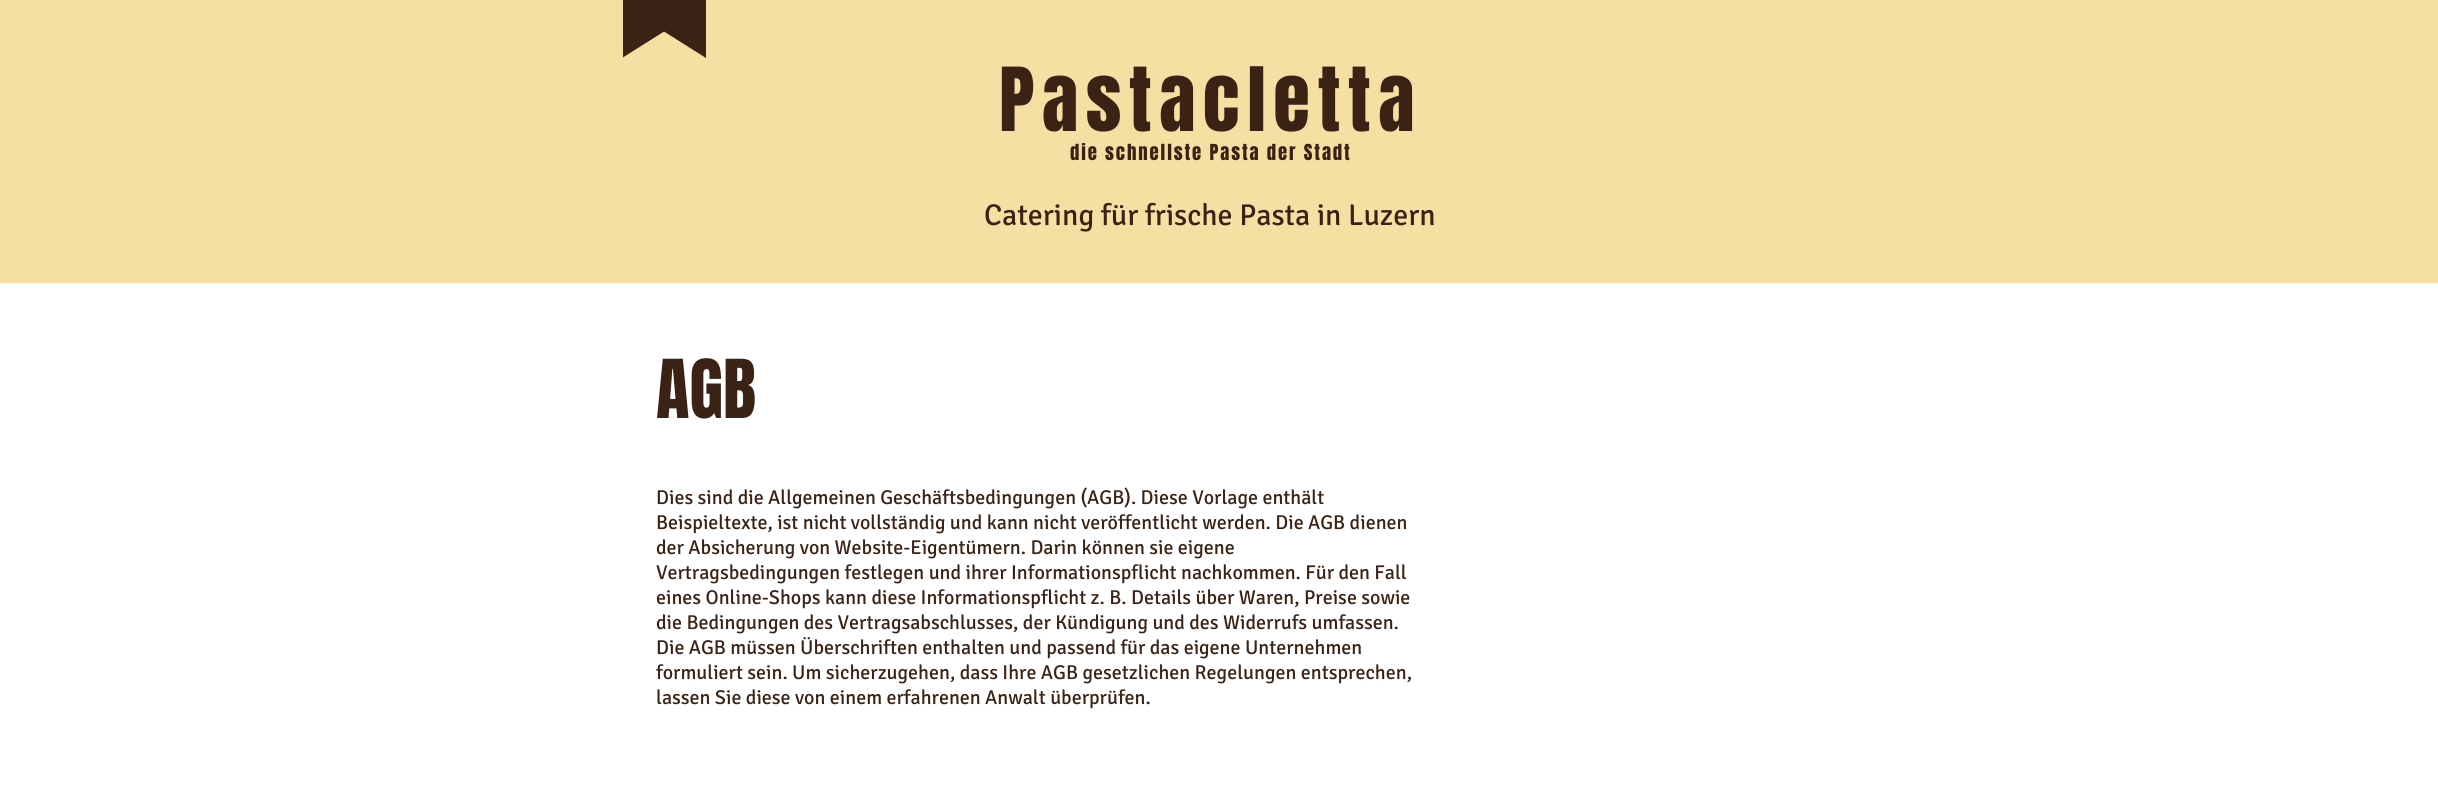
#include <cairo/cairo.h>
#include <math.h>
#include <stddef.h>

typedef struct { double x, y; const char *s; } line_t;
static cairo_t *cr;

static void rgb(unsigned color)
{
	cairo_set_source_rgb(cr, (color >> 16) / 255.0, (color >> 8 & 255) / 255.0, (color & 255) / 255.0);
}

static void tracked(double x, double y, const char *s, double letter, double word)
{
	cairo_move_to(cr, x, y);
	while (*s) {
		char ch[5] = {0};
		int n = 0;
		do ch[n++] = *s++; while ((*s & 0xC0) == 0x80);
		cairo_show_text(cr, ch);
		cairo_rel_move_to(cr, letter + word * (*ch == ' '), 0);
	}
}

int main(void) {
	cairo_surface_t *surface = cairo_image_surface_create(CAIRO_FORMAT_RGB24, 2438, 792);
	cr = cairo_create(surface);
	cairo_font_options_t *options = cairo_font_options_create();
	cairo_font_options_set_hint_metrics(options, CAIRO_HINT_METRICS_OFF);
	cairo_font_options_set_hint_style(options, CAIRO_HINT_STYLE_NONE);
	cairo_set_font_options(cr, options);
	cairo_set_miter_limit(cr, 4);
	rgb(0xffffff);
	cairo_paint(cr);
	rgb(0xf6dfa2);
	cairo_rectangle(cr, 0, 0, 2438, 283);
	cairo_fill(cr);
	rgb(0x3a2315);
	cairo_rectangle(cr, 623, 0, 83, 26);
	cairo_fill(cr);
	cairo_save(cr);
	cairo_rectangle(cr, 623, 26, 83, 32);
	cairo_clip(cr);
	cairo_new_path(cr);
	cairo_move_to(cr, 622, 58);
	cairo_line_to(cr, 622, -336);
	cairo_line_to(cr, 1248, -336);
	cairo_close_path(cr);
	cairo_fill(cr);
	cairo_new_path(cr);
	cairo_move_to(cr, 706, -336);
	cairo_line_to(cr, 706, 58);
	cairo_line_to(cr, 81, -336);
	cairo_close_path(cr);
	cairo_fill(cr);
	cairo_restore(cr);
	cairo_select_font_face(cr, "Anton", CAIRO_FONT_SLANT_NORMAL, CAIRO_FONT_WEIGHT_NORMAL);
	cairo_set_font_size(cr, 75);
	tracked(999, 131, "Pastacletta", 7.5, 0);
	cairo_set_font_size(cr, 18.75);
	tracked(1070, 160, "die schnellste Pasta der Stadt", 1.9, 0);
	cairo_select_font_face(cr, "Signika", CAIRO_FONT_SLANT_NORMAL, CAIRO_FONT_WEIGHT_NORMAL);
	cairo_set_font_size(cr, 30);
	cairo_move_to(cr, 984, 225);
	cairo_show_text(cr, "Catering für frische Pasta in Luzern");
	cairo_select_font_face(cr, "Anton", CAIRO_FONT_SLANT_NORMAL, CAIRO_FONT_WEIGHT_NORMAL);
	cairo_set_font_size(cr, 69);
	cairo_move_to(cr, 656, 418);
	cairo_show_text(cr, "AGB");
	cairo_select_font_face(cr, "Signika", CAIRO_FONT_SLANT_NORMAL, CAIRO_FONT_WEIGHT_NORMAL);
	cairo_set_font_size(cr, 20);
	{
		static const line_t items[] = {
			{656, 504, "Dies sind die Allgemeinen Geschäftsbedingungen (AGB). Diese Vorlage enthält"},
			{656, 529, "Beispieltexte, ist nicht vollständig und kann nicht veröffentlicht werden. Die AGB dienen"},
			{656, 554, "der Absicherung von Website-Eigentümern. Darin können sie eigene"},
			{656, 579, "Vertragsbedingungen festlegen und ihrer Informationspflicht nachkommen. Für den Fall"},
			{656, 604, "eines Online-Shops kann diese Informationspflicht z. B. Details über Waren, Preise sowie"},
			{656, 629, "die Bedingungen des Vertragsabschlusses, der Kündigung und des Widerrufs umfassen."},
			{656, 654, "Die AGB müssen Überschriften enthalten und passend für das eigene Unternehmen"},
			{656, 679, "formuliert sein. Um sicherzugehen, dass Ihre AGB gesetzlichen Regelungen entsprechen,"},
			{656, 704, "lassen Sie diese von einem erfahrenen Anwalt überprüfen."},
		};
		for (size_t i = 0; i < sizeof items / sizeof *items; i++) {
			cairo_move_to(cr, items[i].x, items[i].y);
			cairo_show_text(cr, items[i].s);
		}
	}
	cairo_surface_write_to_png(surface, "page.png");
	cairo_font_options_destroy(options);
	cairo_destroy(cr);
	cairo_surface_destroy(surface);
	return 0;
}
